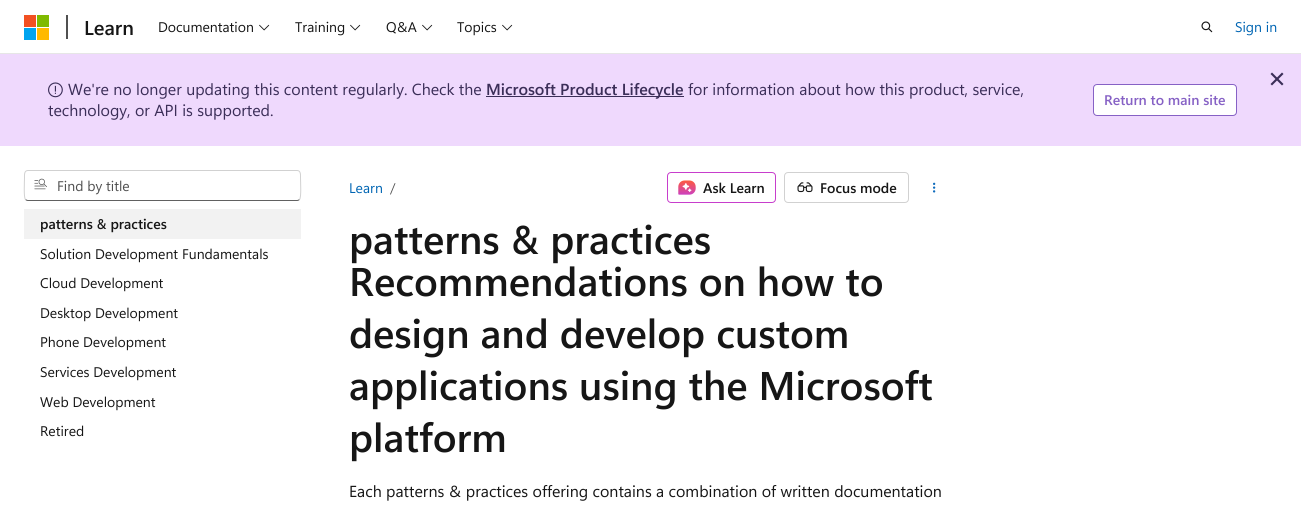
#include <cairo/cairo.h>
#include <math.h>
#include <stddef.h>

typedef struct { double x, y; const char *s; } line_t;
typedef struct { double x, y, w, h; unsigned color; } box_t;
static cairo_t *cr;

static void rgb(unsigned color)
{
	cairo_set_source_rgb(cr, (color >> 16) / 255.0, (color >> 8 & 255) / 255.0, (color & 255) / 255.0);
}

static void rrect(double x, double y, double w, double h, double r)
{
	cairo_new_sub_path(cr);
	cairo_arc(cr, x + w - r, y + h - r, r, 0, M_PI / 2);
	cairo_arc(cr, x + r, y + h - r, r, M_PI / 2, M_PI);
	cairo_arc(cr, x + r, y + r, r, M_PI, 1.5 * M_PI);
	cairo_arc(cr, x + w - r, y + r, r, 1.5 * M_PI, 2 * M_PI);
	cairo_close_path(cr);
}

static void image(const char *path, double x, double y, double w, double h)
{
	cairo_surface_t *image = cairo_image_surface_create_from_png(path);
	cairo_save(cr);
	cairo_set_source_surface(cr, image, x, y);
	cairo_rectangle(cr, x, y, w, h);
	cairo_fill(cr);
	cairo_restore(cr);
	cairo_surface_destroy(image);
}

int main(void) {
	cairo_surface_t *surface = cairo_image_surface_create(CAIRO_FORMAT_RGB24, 1301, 516);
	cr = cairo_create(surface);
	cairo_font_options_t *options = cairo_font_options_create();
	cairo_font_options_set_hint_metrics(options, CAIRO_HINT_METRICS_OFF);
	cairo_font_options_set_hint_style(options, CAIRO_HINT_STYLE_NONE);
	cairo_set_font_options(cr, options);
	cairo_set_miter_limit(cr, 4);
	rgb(0xffffff);
	cairo_paint(cr);
	{
		static const box_t items[] = {
			{0, 53, 1301, 1, 0xe6e6e6},
			{24, 15, 12, 12, 0xf25022},
			{37, 15, 12, 12, 0x7fba00},
			{24, 28, 12, 12, 0x00a4ef},
			{37, 28, 12, 12, 0xffb900},
			{66, 15, 2, 24, 0x505050},
		};
		for (size_t i = 0; i < sizeof items / sizeof *items; i++) {
			rgb(items[i].color);
			cairo_rectangle(cr, items[i].x, items[i].y, items[i].w, items[i].h);
			cairo_fill(cr);
		}
	}
	image("img/1.png", 259, 24, 11, 7);
	image("img/1.png", 350, 24, 11, 7);
	image("img/1.png", 422, 24, 11, 7);
	image("img/1.png", 502, 24, 11, 7);
	image("img/2.png", 1201, 21, 12, 12);
	rgb(0xefd9fd);
	cairo_rectangle(cr, 0, 54, 1301, 92);
	cairo_fill(cr);
	rgb(0x3b2e58);
	cairo_new_path(cr);
	cairo_move_to(cr, 1272, 72.5);
	cairo_line_to(cr, 1283.5, 84);
	cairo_line_to(cr, 1282, 85.5);
	cairo_line_to(cr, 1270.5, 74);
	cairo_close_path(cr);
	cairo_fill(cr);
	cairo_new_path(cr);
	cairo_move_to(cr, 1282, 72.5);
	cairo_line_to(cr, 1283.5, 74);
	cairo_line_to(cr, 1272, 85.5);
	cairo_line_to(cr, 1270.5, 84);
	cairo_close_path(cr);
	cairo_fill(cr);
	image("img/3.png", 48, 82, 15, 16);
	cairo_rectangle(cr, 486, 96, 198, 1);
	cairo_fill(cr);
	rgb(0xffffff);
	rrect(1093.5, 84.5, 143, 31, 3.5);
	cairo_fill_preserve(cr);
	rgb(0x8661c5);
	cairo_set_line_width(cr, 1);
	cairo_stroke(cr);
	cairo_new_path(cr);
	cairo_move_to(cr, 299.5, 199.5);
	cairo_curve_to(cr, 299, 200, 298, 200.5, 297, 200.5);
	cairo_line_to(cr, 28, 200.5);
	cairo_curve_to(cr, 27, 200.5, 26, 200, 25.5, 199.5);
	rgb(0x616161);
	cairo_stroke(cr);
	cairo_new_path(cr);
	cairo_move_to(cr, 25.5, 199.5);
	cairo_curve_to(cr, 23.5, 197.5, 24.5, 181.5, 24.5, 178);
	cairo_curve_to(cr, 24.5, 175, 24, 170.5, 28, 170.5);
	cairo_line_to(cr, 297, 170.5);
	cairo_curve_to(cr, 301, 170.5, 300.5, 175, 300.5, 178);
	cairo_curve_to(cr, 300.5, 181.5, 301.5, 197.5, 299.5, 199.5);
	rgb(0xd1d1d1);
	cairo_stroke(cr);
	image("img/4.png", 34, 178, 13, 12);
	rgb(0xf2f2f2);
	cairo_rectangle(cr, 24, 209, 277, 30);
	cairo_fill(cr);
	rrect(667.5, 172.5, 108, 30, 3.5);
	rgb(0xc73ecc);
	cairo_stroke(cr);
	image("img/5.png", 678, 180, 18, 15);
	rrect(784.5, 172.5, 124, 30, 3.5);
	rgb(0xd1d1d1);
	cairo_stroke(cr);
	image("img/6.png", 797, 182, 16, 11);
	image("img/7.png", 933, 182, 3, 11);
	cairo_select_font_face(cr, "Segoe UI SemiBold", CAIRO_FONT_SLANT_NORMAL, CAIRO_FONT_WEIGHT_NORMAL);
	cairo_set_font_size(cr, 20);
	rgb(0x161616);
	cairo_move_to(cr, 84, 35);
	cairo_show_text(cr, "Learn");
	cairo_select_font_face(cr, "Segoe UI", CAIRO_FONT_SLANT_NORMAL, CAIRO_FONT_WEIGHT_NORMAL);
	cairo_set_font_size(cr, 14);
	{
		static const line_t items[] = {
			{158, 32, "Documentation"},
			{295, 32, "Training"},
			{386, 32, "Q&A"},
			{457, 32, "Topics"},
		};
		for (size_t i = 0; i < sizeof items / sizeof *items; i++) {
			cairo_move_to(cr, items[i].x, items[i].y);
			cairo_show_text(cr, items[i].s);
		}
	}
	rgb(0x0065b3);
	cairo_move_to(cr, 1235, 32);
	cairo_show_text(cr, "Sign in");
	cairo_set_font_size(cr, 16);
	rgb(0x3b2e58);
	cairo_move_to(cr, 68, 95);
	cairo_show_text(cr, "We're no longer updating this content regularly. Check the");
	cairo_select_font_face(cr, "Segoe UI SemiBold", CAIRO_FONT_SLANT_NORMAL, CAIRO_FONT_WEIGHT_NORMAL);
	cairo_move_to(cr, 486, 95);
	cairo_show_text(cr, "Microsoft Product Lifecycle");
	cairo_select_font_face(cr, "Segoe UI", CAIRO_FONT_SLANT_NORMAL, CAIRO_FONT_WEIGHT_NORMAL);
	cairo_move_to(cr, 688, 95);
	cairo_show_text(cr, "for information about how this product, service,");
	cairo_move_to(cr, 48, 116);
	cairo_show_text(cr, "technology, or API is supported.");
	cairo_select_font_face(cr, "Segoe UI SemiBold", CAIRO_FONT_SLANT_NORMAL, CAIRO_FONT_WEIGHT_NORMAL);
	cairo_set_font_size(cr, 14);
	rgb(0x8661c5);
	cairo_move_to(cr, 1104, 105);
	cairo_show_text(cr, "Return to main site");
	cairo_select_font_face(cr, "Segoe UI", CAIRO_FONT_SLANT_NORMAL, CAIRO_FONT_WEIGHT_NORMAL);
	rgb(0x505050);
	cairo_move_to(cr, 57, 191);
	cairo_show_text(cr, "Find by title");
	cairo_select_font_face(cr, "Segoe UI SemiBold", CAIRO_FONT_SLANT_NORMAL, CAIRO_FONT_WEIGHT_NORMAL);
	rgb(0x161616);
	cairo_move_to(cr, 40, 229);
	cairo_show_text(cr, "patterns & practices");
	cairo_select_font_face(cr, "Segoe UI", CAIRO_FONT_SLANT_NORMAL, CAIRO_FONT_WEIGHT_NORMAL);
	{
		static const line_t items[] = {
			{40, 259, "Solution Development Fundamentals"},
			{40, 288, "Cloud Development"},
			{40, 318, "Desktop Development"},
			{40, 347, "Phone Development"},
			{40, 377, "Services Development"},
			{40, 407, "Web Development"},
			{40, 436, "Retired"},
		};
		for (size_t i = 0; i < sizeof items / sizeof *items; i++) {
			cairo_move_to(cr, items[i].x, items[i].y);
			cairo_show_text(cr, items[i].s);
		}
	}
	rgb(0x0065b3);
	cairo_move_to(cr, 349, 193);
	cairo_show_text(cr, "Learn");
	rgb(0x505050);
	cairo_move_to(cr, 390, 193);
	cairo_show_text(cr, "/");
	cairo_select_font_face(cr, "Segoe UI SemiBold", CAIRO_FONT_SLANT_NORMAL, CAIRO_FONT_WEIGHT_NORMAL);
	rgb(0x161616);
	cairo_move_to(cr, 703, 193);
	cairo_show_text(cr, "Ask Learn");
	cairo_move_to(cr, 820, 193);
	cairo_show_text(cr, "Focus mode");
	cairo_set_font_size(cr, 40);
	{
		static const line_t items[] = {
			{349, 254, "patterns & practices"},
			{349, 296, "Recommendations on how to"},
			{349, 348, "design and develop custom"},
			{349, 400, "applications using the Microsoft"},
			{349, 452, "platform"},
		};
		for (size_t i = 0; i < sizeof items / sizeof *items; i++) {
			cairo_move_to(cr, items[i].x, items[i].y);
			cairo_show_text(cr, items[i].s);
		}
	}
	cairo_select_font_face(cr, "Segoe UI", CAIRO_FONT_SLANT_NORMAL, CAIRO_FONT_WEIGHT_NORMAL);
	cairo_set_font_size(cr, 16);
	cairo_move_to(cr, 349, 497);
	cairo_show_text(cr, "Each patterns & practices offering contains a combination of written documentation");
	cairo_surface_write_to_png(surface, "page.png");
	cairo_font_options_destroy(options);
	cairo_destroy(cr);
	cairo_surface_destroy(surface);
	return 0;
}
